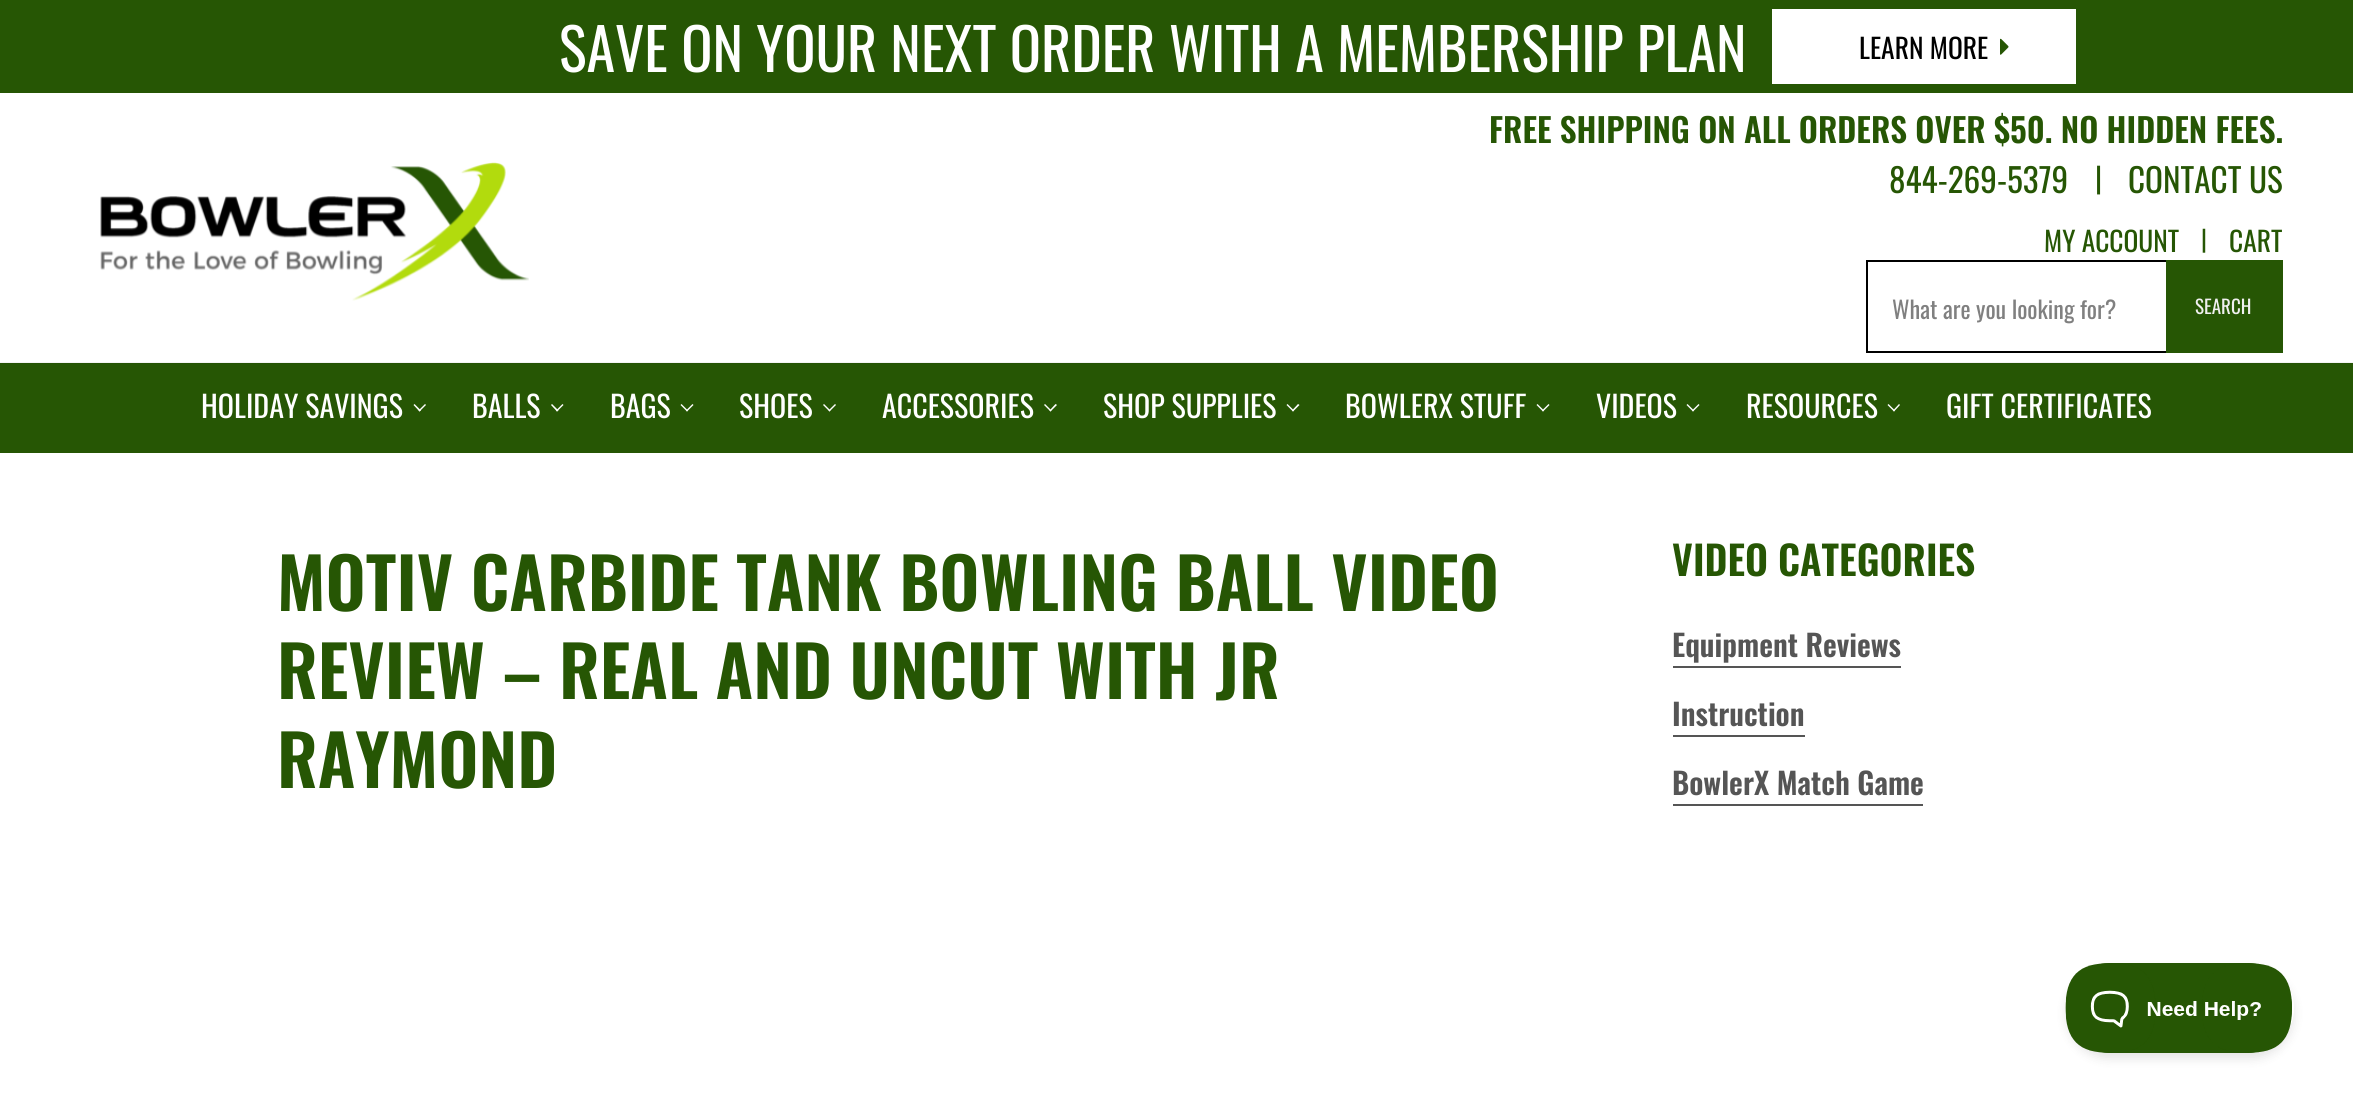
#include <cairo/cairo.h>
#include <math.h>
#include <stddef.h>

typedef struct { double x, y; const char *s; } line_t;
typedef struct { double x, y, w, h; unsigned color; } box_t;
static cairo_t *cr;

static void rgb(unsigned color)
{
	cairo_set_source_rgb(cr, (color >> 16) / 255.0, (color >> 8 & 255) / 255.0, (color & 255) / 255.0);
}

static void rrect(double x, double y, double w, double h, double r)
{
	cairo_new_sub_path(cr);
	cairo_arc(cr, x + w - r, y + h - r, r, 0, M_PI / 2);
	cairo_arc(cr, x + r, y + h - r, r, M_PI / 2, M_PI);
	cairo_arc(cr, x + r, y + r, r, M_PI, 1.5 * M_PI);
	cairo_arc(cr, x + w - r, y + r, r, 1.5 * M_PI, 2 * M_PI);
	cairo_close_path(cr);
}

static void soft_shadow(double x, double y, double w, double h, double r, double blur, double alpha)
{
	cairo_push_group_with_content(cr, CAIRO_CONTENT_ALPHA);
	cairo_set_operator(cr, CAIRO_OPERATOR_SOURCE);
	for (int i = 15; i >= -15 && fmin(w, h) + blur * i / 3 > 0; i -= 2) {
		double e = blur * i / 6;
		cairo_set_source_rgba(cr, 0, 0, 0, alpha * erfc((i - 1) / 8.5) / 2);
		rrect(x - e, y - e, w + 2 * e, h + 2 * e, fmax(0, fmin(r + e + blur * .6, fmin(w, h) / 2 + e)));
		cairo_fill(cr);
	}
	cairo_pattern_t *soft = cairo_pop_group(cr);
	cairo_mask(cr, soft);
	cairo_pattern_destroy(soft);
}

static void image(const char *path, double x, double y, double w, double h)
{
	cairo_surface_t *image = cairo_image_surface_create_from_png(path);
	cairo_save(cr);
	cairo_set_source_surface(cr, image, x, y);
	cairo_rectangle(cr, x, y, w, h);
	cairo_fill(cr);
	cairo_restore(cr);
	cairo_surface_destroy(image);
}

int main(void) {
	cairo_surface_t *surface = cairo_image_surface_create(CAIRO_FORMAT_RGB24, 2353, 1112);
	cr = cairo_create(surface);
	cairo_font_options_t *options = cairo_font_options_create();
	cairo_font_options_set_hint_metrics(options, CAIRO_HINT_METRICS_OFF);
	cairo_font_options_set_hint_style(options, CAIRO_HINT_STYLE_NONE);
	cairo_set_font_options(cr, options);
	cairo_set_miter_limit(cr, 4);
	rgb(0xffffff);
	cairo_paint(cr);
	{
		static const box_t items[] = {
			{0, 362, 2353, 1, 0xf3f3f4},
			{0, 0, 2353, 93, 0x265604},
			{1772, 9, 304, 75, 0xffffff},
		};
		for (size_t i = 0; i < sizeof items / sizeof *items; i++) {
			rgb(items[i].color);
			cairo_rectangle(cr, items[i].x, items[i].y, items[i].w, items[i].h);
			cairo_fill(cr);
		}
	}
	image("img/1.png", 2000, 38, 9, 17);
	image("img/2.png", 100, 162, 429, 139);
	cairo_rectangle(cr, 1867, 261, 310, 91);
	rgb(0x000000);
	cairo_stroke(cr);
	{
		static const box_t items[] = {
			{2166, 260, 117, 93, 0x265604},
			{0, 364, 2353, 89, 0x265604},
			{0, 363, 2353, 1, 0x255305},
		};
		for (size_t i = 0; i < sizeof items / sizeof *items; i++) {
			rgb(items[i].color);
			cairo_rectangle(cr, items[i].x, items[i].y, items[i].w, items[i].h);
			cairo_fill(cr);
		}
	}
	rgb(0xffffff);
	cairo_new_path(cr);
	cairo_move_to(cr, 425, 404);
	cairo_line_to(cr, 426, 405);
	cairo_line_to(cr, 419.5, 411.5);
	cairo_line_to(cr, 418.5, 410.5);
	cairo_close_path(cr);
	cairo_fill(cr);
	cairo_new_path(cr);
	cairo_move_to(cr, 414.5, 404);
	cairo_line_to(cr, 421, 410.5);
	cairo_line_to(cr, 419.5, 411.5);
	cairo_line_to(cr, 413.5, 405);
	cairo_close_path(cr);
	cairo_fill(cr);
	cairo_new_path(cr);
	cairo_move_to(cr, 562.5, 404);
	cairo_line_to(cr, 563.5, 405);
	cairo_line_to(cr, 557, 411.5);
	cairo_line_to(cr, 556, 410.5);
	cairo_close_path(cr);
	cairo_fill(cr);
	cairo_new_path(cr);
	cairo_move_to(cr, 552, 404);
	cairo_line_to(cr, 558.5, 410.5);
	cairo_line_to(cr, 557, 411.5);
	cairo_line_to(cr, 551, 405);
	cairo_close_path(cr);
	cairo_fill(cr);
	cairo_new_path(cr);
	cairo_move_to(cr, 692.5, 404);
	cairo_line_to(cr, 693.5, 405);
	cairo_line_to(cr, 687, 411.5);
	cairo_line_to(cr, 686, 410.5);
	cairo_close_path(cr);
	cairo_fill(cr);
	cairo_new_path(cr);
	cairo_move_to(cr, 681.5, 404);
	cairo_line_to(cr, 688, 410.5);
	cairo_line_to(cr, 687, 411.5);
	cairo_line_to(cr, 680.5, 405);
	cairo_close_path(cr);
	cairo_fill(cr);
	cairo_new_path(cr);
	cairo_move_to(cr, 835, 404);
	cairo_line_to(cr, 836, 405);
	cairo_line_to(cr, 829.5, 411.5);
	cairo_line_to(cr, 828.5, 410.5);
	cairo_close_path(cr);
	cairo_fill(cr);
	cairo_new_path(cr);
	cairo_move_to(cr, 824, 404);
	cairo_line_to(cr, 830.5, 410.5);
	cairo_line_to(cr, 829.5, 411.5);
	cairo_line_to(cr, 823, 405);
	cairo_close_path(cr);
	cairo_fill(cr);
	cairo_new_path(cr);
	cairo_move_to(cr, 1055.5, 404);
	cairo_line_to(cr, 1057, 405);
	cairo_line_to(cr, 1050.5, 411.5);
	cairo_line_to(cr, 1049.5, 410.5);
	cairo_close_path(cr);
	cairo_fill(cr);
	cairo_new_path(cr);
	cairo_move_to(cr, 1045, 404);
	cairo_line_to(cr, 1051.5, 410.5);
	cairo_line_to(cr, 1050.5, 411.5);
	cairo_line_to(cr, 1044, 405);
	cairo_close_path(cr);
	cairo_fill(cr);
	cairo_new_path(cr);
	cairo_move_to(cr, 1298, 404);
	cairo_line_to(cr, 1299.5, 405);
	cairo_line_to(cr, 1293, 411.5);
	cairo_line_to(cr, 1292, 410.5);
	cairo_close_path(cr);
	cairo_fill(cr);
	cairo_new_path(cr);
	cairo_move_to(cr, 1287.5, 404);
	cairo_line_to(cr, 1294, 410.5);
	cairo_line_to(cr, 1293, 411.5);
	cairo_line_to(cr, 1286.5, 405);
	cairo_close_path(cr);
	cairo_fill(cr);
	cairo_new_path(cr);
	cairo_move_to(cr, 1548.5, 404);
	cairo_line_to(cr, 1549.5, 405);
	cairo_line_to(cr, 1543, 411.5);
	cairo_line_to(cr, 1542, 410.5);
	cairo_close_path(cr);
	cairo_fill(cr);
	cairo_new_path(cr);
	cairo_move_to(cr, 1537.5, 404);
	cairo_line_to(cr, 1544, 410.5);
	cairo_line_to(cr, 1543, 411.5);
	cairo_line_to(cr, 1536.5, 405);
	cairo_close_path(cr);
	cairo_fill(cr);
	cairo_new_path(cr);
	cairo_move_to(cr, 1698.5, 404);
	cairo_line_to(cr, 1699.5, 405);
	cairo_line_to(cr, 1693, 411.5);
	cairo_line_to(cr, 1692, 410.5);
	cairo_close_path(cr);
	cairo_fill(cr);
	cairo_new_path(cr);
	cairo_move_to(cr, 1687.5, 404);
	cairo_line_to(cr, 1694, 410.5);
	cairo_line_to(cr, 1693, 411.5);
	cairo_line_to(cr, 1686.5, 405);
	cairo_close_path(cr);
	cairo_fill(cr);
	cairo_new_path(cr);
	cairo_move_to(cr, 1899, 404);
	cairo_line_to(cr, 1900, 405);
	cairo_line_to(cr, 1894, 411.5);
	cairo_line_to(cr, 1893, 410.5);
	cairo_close_path(cr);
	cairo_fill(cr);
	cairo_new_path(cr);
	cairo_move_to(cr, 1888.5, 404);
	cairo_line_to(cr, 1895, 410.5);
	cairo_line_to(cr, 1894, 411.5);
	cairo_line_to(cr, 1887.5, 405);
	cairo_close_path(cr);
	cairo_fill(cr);
	{
		static const box_t items[] = {
			{1673, 666, 228, 2, 0x555555},
			{1673, 735, 132, 2, 0x555555},
			{1673, 804, 250, 2, 0x555555},
		};
		for (size_t i = 0; i < sizeof items / sizeof *items; i++) {
			rgb(items[i].color);
			cairo_rectangle(cr, items[i].x, items[i].y, items[i].w, items[i].h);
			cairo_fill(cr);
		}
	}
	cairo_save(cr);
	cairo_set_fill_rule(cr, CAIRO_FILL_RULE_EVEN_ODD);
	cairo_new_path(cr);
	cairo_move_to(cr, 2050, 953);
	cairo_line_to(cr, 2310, 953);
	cairo_line_to(cr, 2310, 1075);
	cairo_line_to(cr, 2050, 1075);
	cairo_close_path(cr);
	cairo_move_to(cr, 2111, 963);
	cairo_line_to(cr, 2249, 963);
	cairo_curve_to(cr, 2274, 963, 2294, 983, 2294, 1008);
	cairo_curve_to(cr, 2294, 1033, 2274, 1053, 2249, 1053);
	cairo_line_to(cr, 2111, 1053);
	cairo_curve_to(cr, 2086, 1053, 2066, 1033, 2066, 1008);
	cairo_curve_to(cr, 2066, 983, 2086, 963, 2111, 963);
	cairo_close_path(cr);
	cairo_clip(cr);
	rgb(0x000000);
	soft_shadow(2066, 969, 228, 90, 45, 5, 0.1);
	cairo_restore(cr);
	image("img/3.png", 2065, 963, 227, 90);
	cairo_select_font_face(cr, "Oswald", CAIRO_FONT_SLANT_NORMAL, CAIRO_FONT_WEIGHT_NORMAL);
	cairo_set_font_size(cr, 58);
	rgb(0xffffff);
	cairo_move_to(cr, 559, 72);
	cairo_show_text(cr, "SAVE ON YOUR NEXT ORDER WITH A MEMBERSHIP PLAN");
	cairo_set_font_size(cr, 27.5);
	rgb(0x000000);
	cairo_move_to(cr, 1859, 59);
	cairo_show_text(cr, "LEARN MORE");
	cairo_select_font_face(cr, "Oswald SemiBold", CAIRO_FONT_SLANT_NORMAL, CAIRO_FONT_WEIGHT_NORMAL);
	cairo_set_font_size(cr, 33.2);
	rgb(0x265604);
	cairo_move_to(cr, 1489, 143);
	cairo_show_text(cr, "FREE SHIPPING ON ALL ORDERS OVER $50. NO HIDDEN FEES.");
	cairo_select_font_face(cr, "Oswald", CAIRO_FONT_SLANT_NORMAL, CAIRO_FONT_WEIGHT_NORMAL);
	cairo_move_to(cr, 1889, 193);
	cairo_show_text(cr, "844-269-5379");
	cairo_set_font_size(cr, 30);
	cairo_move_to(cr, 2095, 190);
	cairo_show_text(cr, "|");
	cairo_set_font_size(cr, 33.2);
	cairo_move_to(cr, 2128, 193);
	cairo_show_text(cr, "CONTACT US");
	cairo_set_font_size(cr, 27.5);
	cairo_move_to(cr, 2044, 252);
	cairo_show_text(cr, "MY ACCOUNT");
	cairo_set_font_size(cr, 25);
	cairo_move_to(cr, 2201, 249);
	cairo_show_text(cr, "|");
	cairo_set_font_size(cr, 27.5);
	cairo_move_to(cr, 2229, 252);
	cairo_show_text(cr, "CART");
	cairo_set_font_size(cr, 24);
	rgb(0x808080);
	cairo_move_to(cr, 1892, 319);
	cairo_show_text(cr, "What are you looking for?");
	cairo_set_font_size(cr, 19);
	rgb(0xf0f0f0);
	cairo_move_to(cr, 2195, 314);
	cairo_show_text(cr, "SEARCH");
	cairo_set_font_size(cr, 30);
	rgb(0xffffff);
	{
		static const line_t items[] = {
			{201, 418, "HOLIDAY SAVINGS"},
			{472, 418, "BALLS"},
			{610, 418, "BAGS"},
			{739, 418, "SHOES"},
			{882, 418, "ACCESSORIES"},
			{1103, 418, "SHOP SUPPLIES"},
			{1345, 418, "BOWLERX STUFF"},
			{1596, 418, "VIDEOS"},
			{1746, 418, "RESOURCES"},
			{1946, 418, "GIFT CERTIFICATES"},
		};
		for (size_t i = 0; i < sizeof items / sizeof *items; i++) {
			cairo_move_to(cr, items[i].x, items[i].y);
			cairo_show_text(cr, items[i].s);
		}
	}
	cairo_select_font_face(cr, "Oswald SemiBold", CAIRO_FONT_SLANT_NORMAL, CAIRO_FONT_WEIGHT_NORMAL);
	cairo_set_font_size(cr, 69.9);
	rgb(0x265604);
	{
		static const line_t items[] = {
			{277, 611, "MOTIV CARBIDE TANK BOWLING BALL VIDEO"},
			{277, 699, "REVIEW – REAL AND UNCUT WITH JR"},
			{277, 788, "RAYMOND"},
		};
		for (size_t i = 0; i < sizeof items / sizeof *items; i++) {
			cairo_move_to(cr, items[i].x, items[i].y);
			cairo_show_text(cr, items[i].s);
		}
	}
	cairo_set_font_size(cr, 40);
	cairo_move_to(cr, 1672, 576);
	cairo_show_text(cr, "VIDEO CATEGORIES");
	cairo_set_font_size(cr, 30);
	rgb(0x555555);
	{
		static const line_t items[] = {
			{1672, 657, "Equipment Reviews"},
			{1672, 726, "Instruction"},
			{1672, 795, "BowlerX Match Game"},
		};
		for (size_t i = 0; i < sizeof items / sizeof *items; i++) {
			cairo_move_to(cr, items[i].x, items[i].y);
			cairo_show_text(cr, items[i].s);
		}
	}
	cairo_surface_write_to_png(surface, "page.png");
	cairo_font_options_destroy(options);
	cairo_destroy(cr);
	cairo_surface_destroy(surface);
	return 0;
}
